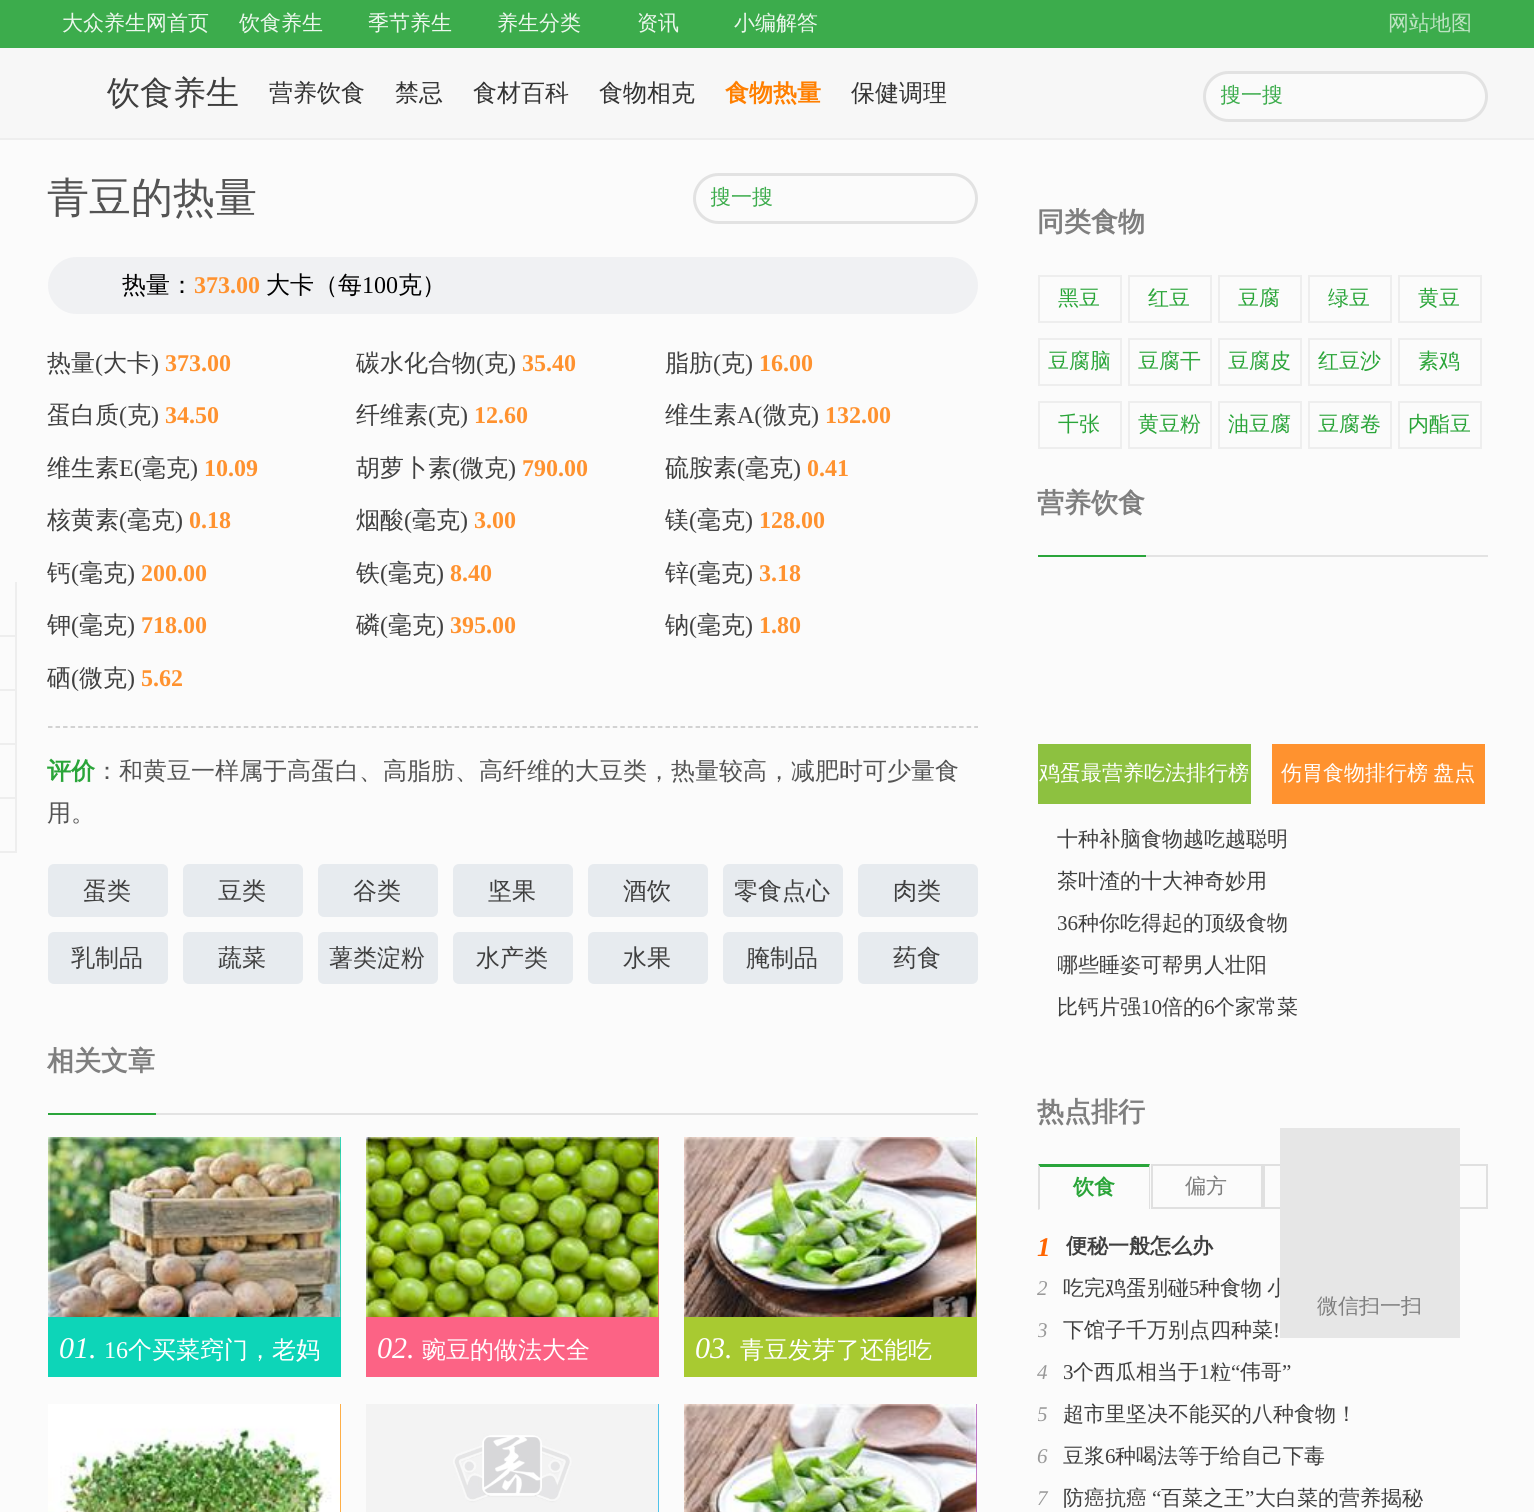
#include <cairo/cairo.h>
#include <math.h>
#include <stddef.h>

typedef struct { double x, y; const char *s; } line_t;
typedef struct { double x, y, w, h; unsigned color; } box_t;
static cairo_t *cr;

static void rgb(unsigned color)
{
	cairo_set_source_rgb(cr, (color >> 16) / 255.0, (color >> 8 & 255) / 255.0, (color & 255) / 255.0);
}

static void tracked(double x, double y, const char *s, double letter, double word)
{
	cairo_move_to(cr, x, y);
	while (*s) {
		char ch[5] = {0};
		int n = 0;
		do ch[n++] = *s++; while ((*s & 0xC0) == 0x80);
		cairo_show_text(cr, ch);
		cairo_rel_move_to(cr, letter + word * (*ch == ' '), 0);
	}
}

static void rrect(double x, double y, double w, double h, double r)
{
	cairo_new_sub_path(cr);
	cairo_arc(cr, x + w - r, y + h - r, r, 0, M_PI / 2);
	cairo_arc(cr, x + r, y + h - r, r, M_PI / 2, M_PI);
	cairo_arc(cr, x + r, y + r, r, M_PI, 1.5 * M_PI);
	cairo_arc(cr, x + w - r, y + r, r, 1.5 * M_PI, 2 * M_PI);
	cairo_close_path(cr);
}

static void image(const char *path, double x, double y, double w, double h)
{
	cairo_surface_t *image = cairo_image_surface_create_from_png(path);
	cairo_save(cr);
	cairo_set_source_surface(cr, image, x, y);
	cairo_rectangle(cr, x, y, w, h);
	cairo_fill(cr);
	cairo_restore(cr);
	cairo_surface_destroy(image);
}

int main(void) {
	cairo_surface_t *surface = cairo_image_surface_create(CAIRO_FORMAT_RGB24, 1534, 1512);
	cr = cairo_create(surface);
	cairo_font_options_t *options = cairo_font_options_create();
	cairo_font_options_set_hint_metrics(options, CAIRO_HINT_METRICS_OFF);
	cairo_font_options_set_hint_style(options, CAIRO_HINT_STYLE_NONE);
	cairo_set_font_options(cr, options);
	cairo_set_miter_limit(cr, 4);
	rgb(0xfbfbfb);
	cairo_paint(cr);
	{
		static const box_t items[] = {
			{0, 0, 1534, 48, 0x3cac4c},
			{0, 48, 1534, 90, 0xf7f7f7},
			{0, 138, 1534, 2, 0xeeeeee},
		};
		for (size_t i = 0; i < sizeof items / sizeof *items; i++) {
			rgb(items[i].color);
			cairo_rectangle(cr, items[i].x, items[i].y, items[i].w, items[i].h);
			cairo_fill(cr);
		}
	}
	rgb(0xfafafa);
	rrect(1204.5, 72.5, 282, 48, 24);
	cairo_fill_preserve(cr);
	rgb(0xe2e2e2);
	cairo_set_line_width(cr, 3);
	cairo_stroke(cr);
	{
		static const box_t items[] = {
			{15, 582, 2, 54, 0xeeeeee},
			{0, 635, 17, 2, 0xeeeeee},
			{15, 636, 2, 54, 0xeeeeee},
			{0, 689, 17, 2, 0xeeeeee},
			{15, 690, 2, 54, 0xeeeeee},
			{0, 743, 17, 2, 0xeeeeee},
			{15, 744, 2, 54, 0xeeeeee},
			{0, 797, 17, 2, 0xeeeeee},
			{15, 798, 2, 54, 0xeeeeee},
			{0, 851, 17, 2, 0xeeeeee},
		};
		for (size_t i = 0; i < sizeof items / sizeof *items; i++) {
			rgb(items[i].color);
			cairo_rectangle(cr, items[i].x, items[i].y, items[i].w, items[i].h);
			cairo_fill(cr);
		}
	}
	rrect(694.5, 174.5, 282, 48, 24);
	rgb(0xe2e2e2);
	cairo_stroke(cr);
	rgb(0xf0f1f3);
	rrect(48, 257, 930, 57, 28.5);
	cairo_fill(cr);
	cairo_new_path(cr);
	cairo_move_to(cr, 48, 727);
	cairo_line_to(cr, 978, 727);
	rgb(0xc5c5c5);
	cairo_set_line_width(cr, 1.5);
	cairo_set_dash(cr, (double[]){4.5, 3.03}, 2, 0);
	cairo_stroke(cr);
	rgb(0xe7ebef);
	rrect(48, 864, 120, 53, 6);
	cairo_fill(cr);
	rrect(183, 864, 120, 53, 6);
	cairo_fill(cr);
	rrect(318, 864, 120, 53, 6);
	cairo_fill(cr);
	rrect(453, 864, 120, 53, 6);
	cairo_fill(cr);
	rrect(588, 864, 120, 53, 6);
	cairo_fill(cr);
	rrect(723, 864, 120, 53, 6);
	cairo_fill(cr);
	rrect(858, 864, 120, 53, 6);
	cairo_fill(cr);
	rrect(48, 932, 120, 52, 6);
	cairo_fill(cr);
	rrect(183, 932, 120, 52, 6);
	cairo_fill(cr);
	rrect(318, 932, 120, 52, 6);
	cairo_fill(cr);
	rrect(453, 932, 120, 52, 6);
	cairo_fill(cr);
	rrect(588, 932, 120, 52, 6);
	cairo_fill(cr);
	rrect(723, 932, 120, 52, 6);
	cairo_fill(cr);
	rrect(858, 932, 120, 52, 6);
	cairo_fill(cr);
	{
		static const box_t items[] = {
			{156, 1113, 822, 2, 0xe3e3e3},
			{48, 1113, 108, 2, 0x2aa53b},
			{340, 1137, 1, 180, 0x0dd5b8},
		};
		for (size_t i = 0; i < sizeof items / sizeof *items; i++) {
			rgb(items[i].color);
			cairo_rectangle(cr, items[i].x, items[i].y, items[i].w, items[i].h);
			cairo_fill(cr);
		}
	}
	image("img/1.png", 48, 1137, 293, 180);
	cairo_rectangle(cr, 48, 1317, 293, 60);
	cairo_fill(cr);
	rgb(0xfc6385);
	cairo_rectangle(cr, 658, 1137, 1, 180);
	cairo_fill(cr);
	image("img/2.png", 366, 1137, 293, 180);
	cairo_rectangle(cr, 366, 1317, 293, 60);
	cairo_fill(cr);
	rgb(0xa8ca31);
	cairo_rectangle(cr, 976, 1137, 1, 180);
	cairo_fill(cr);
	image("img/3.png", 684, 1137, 293, 180);
	cairo_rectangle(cr, 684, 1317, 293, 60);
	cairo_fill(cr);
	rgb(0xfd9309);
	cairo_rectangle(cr, 340, 1404, 1, 108);
	cairo_fill(cr);
	image("img/4.png", 48, 1404, 293, 108);
	rgb(0x18b2e5);
	cairo_rectangle(cr, 658, 1404, 1, 108);
	cairo_fill(cr);
	image("img/5.png", 366, 1404, 293, 108);
	rgb(0xac52b6);
	cairo_rectangle(cr, 976, 1404, 1, 108);
	cairo_fill(cr);
	image("img/6.png", 684, 1404, 293, 108);
	cairo_rectangle(cr, 1039, 276, 82, 46);
	rgb(0xeeeeee);
	cairo_set_line_width(cr, 2);
	cairo_set_dash(cr, NULL, 0, 0);
	cairo_stroke(cr);
	cairo_rectangle(cr, 1129, 276, 82, 46);
	cairo_stroke(cr);
	cairo_rectangle(cr, 1219, 276, 82, 46);
	cairo_stroke(cr);
	cairo_rectangle(cr, 1309, 276, 82, 46);
	cairo_stroke(cr);
	cairo_rectangle(cr, 1399, 276, 82, 46);
	cairo_stroke(cr);
	cairo_rectangle(cr, 1039, 339, 82, 46);
	cairo_stroke(cr);
	cairo_rectangle(cr, 1129, 339, 82, 46);
	cairo_stroke(cr);
	cairo_rectangle(cr, 1219, 339, 82, 46);
	cairo_stroke(cr);
	cairo_rectangle(cr, 1309, 339, 82, 46);
	cairo_stroke(cr);
	cairo_rectangle(cr, 1399, 339, 82, 46);
	cairo_stroke(cr);
	cairo_rectangle(cr, 1039, 402, 82, 46);
	cairo_stroke(cr);
	cairo_rectangle(cr, 1129, 402, 82, 46);
	cairo_stroke(cr);
	cairo_rectangle(cr, 1219, 402, 82, 46);
	cairo_stroke(cr);
	cairo_rectangle(cr, 1309, 402, 82, 46);
	cairo_stroke(cr);
	cairo_rectangle(cr, 1399, 402, 82, 46);
	cairo_stroke(cr);
	{
		static const box_t items[] = {
			{1146, 555, 342, 2, 0xe3e3e3},
			{1038, 555, 108, 2, 0x2aa53b},
			{1038, 744, 213, 60, 0x8dc140},
			{1272, 744, 213, 60, 0xff922f},
		};
		for (size_t i = 0; i < sizeof items / sizeof *items; i++) {
			rgb(items[i].color);
			cairo_rectangle(cr, items[i].x, items[i].y, items[i].w, items[i].h);
			cairo_fill(cr);
		}
	}
	rgb(0x2aa53b);
	cairo_new_path(cr);
	cairo_move_to(cr, 1038, 1164);
	cairo_line_to(cr, 1150, 1164);
	cairo_line_to(cr, 1149, 1167);
	cairo_line_to(cr, 1040, 1167);
	cairo_close_path(cr);
	cairo_fill(cr);
	rgb(0xe0e0e0);
	cairo_new_path(cr);
	cairo_move_to(cr, 1150, 1164);
	cairo_line_to(cr, 1150, 1210);
	cairo_line_to(cr, 1149, 1209);
	cairo_line_to(cr, 1149, 1167);
	cairo_close_path(cr);
	cairo_fill(cr);
	rgb(0xfbfbfb);
	cairo_rectangle(cr, 1149, 1209, 2, 1);
	cairo_fill(cr);
	rgb(0xe0e0e0);
	cairo_new_path(cr);
	cairo_move_to(cr, 1038, 1210);
	cairo_line_to(cr, 1038, 1164);
	cairo_line_to(cr, 1040, 1167);
	cairo_line_to(cr, 1040, 1209);
	cairo_close_path(cr);
	cairo_fill(cr);
	cairo_rectangle(cr, 1152, 1165, 110, 43);
	cairo_stroke(cr);
	cairo_rectangle(cr, 1264, 1165, 111, 43);
	cairo_stroke(cr);
	cairo_rectangle(cr, 1377, 1165, 110, 43);
	cairo_stroke(cr);
	cairo_select_font_face(cr, "WenQuanYi Zen Hei Medium", CAIRO_FONT_SLANT_NORMAL, CAIRO_FONT_WEIGHT_NORMAL);
	cairo_set_font_size(cr, 21);
	rgb(0xecf7ed);
	{
		static const line_t items[] = {
			{62, 30, "大众养生网首页"},
			{239, 30, "饮食养生"},
			{368, 30, "季节养生"},
			{497, 30, "养生分类"},
			{637, 30, "资讯"},
			{734, 30, "小编解答"},
		};
		for (size_t i = 0; i < sizeof items / sizeof *items; i++) {
			cairo_move_to(cr, items[i].x, items[i].y);
			cairo_show_text(cr, items[i].s);
		}
	}
	rgb(0xbde3c2);
	cairo_move_to(cr, 1388, 30);
	cairo_show_text(cr, "网站地图");
	cairo_set_font_size(cr, 33);
	rgb(0x3f3f3f);
	cairo_move_to(cr, 107, 104);
	cairo_show_text(cr, "饮食养生");
	cairo_set_font_size(cr, 24);
	rgb(0x333333);
	{
		static const line_t items[] = {
			{269, 101, "营养饮食"},
			{395, 101, "禁忌"},
			{473, 101, "食材百科"},
			{599, 101, "食物相克"},
		};
		for (size_t i = 0; i < sizeof items / sizeof *items; i++) {
			cairo_move_to(cr, items[i].x, items[i].y);
			cairo_show_text(cr, items[i].s);
		}
	}
	cairo_select_font_face(cr, "WenQuanYi Zen Hei", CAIRO_FONT_SLANT_NORMAL, CAIRO_FONT_WEIGHT_BOLD);
	rgb(0xff7f00);
	cairo_move_to(cr, 725, 101);
	cairo_show_text(cr, "食物热量");
	cairo_select_font_face(cr, "WenQuanYi Zen Hei Medium", CAIRO_FONT_SLANT_NORMAL, CAIRO_FONT_WEIGHT_NORMAL);
	rgb(0x333333);
	cairo_move_to(cr, 851, 101);
	cairo_show_text(cr, "保健调理");
	cairo_save(cr);
	cairo_rectangle(cr, 1221, 74, 210, 45);
	cairo_clip(cr);
	cairo_set_font_size(cr, 21);
	rgb(0x3cac4c);
	cairo_move_to(cr, 1220, 102);
	cairo_show_text(cr, "搜一搜");
	cairo_restore(cr);
	cairo_set_font_size(cr, 42);
	rgb(0x545454);
	cairo_move_to(cr, 47, 212);
	cairo_show_text(cr, "青豆的热量");
	cairo_save(cr);
	cairo_rectangle(cr, 711, 176, 210, 45);
	cairo_clip(cr);
	cairo_set_font_size(cr, 21);
	rgb(0x3cac4c);
	cairo_move_to(cr, 710, 204);
	cairo_show_text(cr, "搜一搜");
	cairo_restore(cr);
	cairo_set_font_size(cr, 24);
	rgb(0x000000);
	cairo_move_to(cr, 122, 293);
	cairo_show_text(cr, "热量：");
	cairo_select_font_face(cr, "Liberation Serif", CAIRO_FONT_SLANT_NORMAL, CAIRO_FONT_WEIGHT_BOLD);
	rgb(0xff922f);
	cairo_move_to(cr, 194, 293);
	cairo_show_text(cr, "373.00");
	cairo_select_font_face(cr, "WenQuanYi Zen Hei Medium", CAIRO_FONT_SLANT_NORMAL, CAIRO_FONT_WEIGHT_NORMAL);
	rgb(0x000000);
	cairo_move_to(cr, 266, 293);
	cairo_show_text(cr, "大卡（每");
	cairo_select_font_face(cr, "Liberation Serif", CAIRO_FONT_SLANT_NORMAL, CAIRO_FONT_WEIGHT_NORMAL);
	cairo_move_to(cr, 362, 293);
	cairo_show_text(cr, "100");
	cairo_select_font_face(cr, "WenQuanYi Zen Hei Medium", CAIRO_FONT_SLANT_NORMAL, CAIRO_FONT_WEIGHT_NORMAL);
	cairo_move_to(cr, 398, 293);
	cairo_show_text(cr, "克）");
	rgb(0x3f3f3f);
	cairo_move_to(cr, 47, 371);
	cairo_show_text(cr, "热量");
	cairo_select_font_face(cr, "Liberation Serif", CAIRO_FONT_SLANT_NORMAL, CAIRO_FONT_WEIGHT_NORMAL);
	cairo_move_to(cr, 95, 371);
	cairo_show_text(cr, "(");
	cairo_select_font_face(cr, "WenQuanYi Zen Hei Medium", CAIRO_FONT_SLANT_NORMAL, CAIRO_FONT_WEIGHT_NORMAL);
	cairo_move_to(cr, 103, 371);
	cairo_show_text(cr, "大卡");
	cairo_select_font_face(cr, "Liberation Serif", CAIRO_FONT_SLANT_NORMAL, CAIRO_FONT_WEIGHT_NORMAL);
	cairo_move_to(cr, 151, 371);
	cairo_show_text(cr, ")");
	cairo_select_font_face(cr, "Liberation Serif", CAIRO_FONT_SLANT_NORMAL, CAIRO_FONT_WEIGHT_BOLD);
	rgb(0xff922f);
	cairo_move_to(cr, 165, 371);
	cairo_show_text(cr, "373.00");
	cairo_select_font_face(cr, "WenQuanYi Zen Hei Medium", CAIRO_FONT_SLANT_NORMAL, CAIRO_FONT_WEIGHT_NORMAL);
	rgb(0x3f3f3f);
	cairo_move_to(cr, 356, 371);
	cairo_show_text(cr, "碳水化合物");
	cairo_select_font_face(cr, "Liberation Serif", CAIRO_FONT_SLANT_NORMAL, CAIRO_FONT_WEIGHT_NORMAL);
	cairo_move_to(cr, 476, 371);
	cairo_show_text(cr, "(");
	cairo_select_font_face(cr, "WenQuanYi Zen Hei Medium", CAIRO_FONT_SLANT_NORMAL, CAIRO_FONT_WEIGHT_NORMAL);
	cairo_move_to(cr, 484, 371);
	cairo_show_text(cr, "克");
	cairo_select_font_face(cr, "Liberation Serif", CAIRO_FONT_SLANT_NORMAL, CAIRO_FONT_WEIGHT_NORMAL);
	cairo_move_to(cr, 508, 371);
	cairo_show_text(cr, ")");
	cairo_select_font_face(cr, "Liberation Serif", CAIRO_FONT_SLANT_NORMAL, CAIRO_FONT_WEIGHT_BOLD);
	rgb(0xff922f);
	cairo_move_to(cr, 522, 371);
	cairo_show_text(cr, "35.40");
	cairo_select_font_face(cr, "WenQuanYi Zen Hei Medium", CAIRO_FONT_SLANT_NORMAL, CAIRO_FONT_WEIGHT_NORMAL);
	rgb(0x3f3f3f);
	cairo_move_to(cr, 665, 371);
	cairo_show_text(cr, "脂肪");
	cairo_select_font_face(cr, "Liberation Serif", CAIRO_FONT_SLANT_NORMAL, CAIRO_FONT_WEIGHT_NORMAL);
	cairo_move_to(cr, 713, 371);
	cairo_show_text(cr, "(");
	cairo_select_font_face(cr, "WenQuanYi Zen Hei Medium", CAIRO_FONT_SLANT_NORMAL, CAIRO_FONT_WEIGHT_NORMAL);
	cairo_move_to(cr, 721, 371);
	cairo_show_text(cr, "克");
	cairo_select_font_face(cr, "Liberation Serif", CAIRO_FONT_SLANT_NORMAL, CAIRO_FONT_WEIGHT_NORMAL);
	cairo_move_to(cr, 745, 371);
	cairo_show_text(cr, ")");
	cairo_select_font_face(cr, "Liberation Serif", CAIRO_FONT_SLANT_NORMAL, CAIRO_FONT_WEIGHT_BOLD);
	rgb(0xff922f);
	cairo_move_to(cr, 759, 371);
	cairo_show_text(cr, "16.00");
	cairo_select_font_face(cr, "WenQuanYi Zen Hei Medium", CAIRO_FONT_SLANT_NORMAL, CAIRO_FONT_WEIGHT_NORMAL);
	rgb(0x3f3f3f);
	cairo_move_to(cr, 47, 423);
	cairo_show_text(cr, "蛋白质");
	cairo_select_font_face(cr, "Liberation Serif", CAIRO_FONT_SLANT_NORMAL, CAIRO_FONT_WEIGHT_NORMAL);
	cairo_move_to(cr, 119, 423);
	cairo_show_text(cr, "(");
	cairo_select_font_face(cr, "WenQuanYi Zen Hei Medium", CAIRO_FONT_SLANT_NORMAL, CAIRO_FONT_WEIGHT_NORMAL);
	cairo_move_to(cr, 127, 423);
	cairo_show_text(cr, "克");
	cairo_select_font_face(cr, "Liberation Serif", CAIRO_FONT_SLANT_NORMAL, CAIRO_FONT_WEIGHT_NORMAL);
	cairo_move_to(cr, 151, 423);
	cairo_show_text(cr, ")");
	cairo_select_font_face(cr, "Liberation Serif", CAIRO_FONT_SLANT_NORMAL, CAIRO_FONT_WEIGHT_BOLD);
	rgb(0xff922f);
	cairo_move_to(cr, 165, 423);
	cairo_show_text(cr, "34.50");
	cairo_select_font_face(cr, "WenQuanYi Zen Hei Medium", CAIRO_FONT_SLANT_NORMAL, CAIRO_FONT_WEIGHT_NORMAL);
	rgb(0x3f3f3f);
	cairo_move_to(cr, 356, 423);
	cairo_show_text(cr, "纤维素");
	cairo_select_font_face(cr, "Liberation Serif", CAIRO_FONT_SLANT_NORMAL, CAIRO_FONT_WEIGHT_NORMAL);
	cairo_move_to(cr, 428, 423);
	cairo_show_text(cr, "(");
	cairo_select_font_face(cr, "WenQuanYi Zen Hei Medium", CAIRO_FONT_SLANT_NORMAL, CAIRO_FONT_WEIGHT_NORMAL);
	cairo_move_to(cr, 436, 423);
	cairo_show_text(cr, "克");
	cairo_select_font_face(cr, "Liberation Serif", CAIRO_FONT_SLANT_NORMAL, CAIRO_FONT_WEIGHT_NORMAL);
	cairo_move_to(cr, 460, 423);
	cairo_show_text(cr, ")");
	cairo_select_font_face(cr, "Liberation Serif", CAIRO_FONT_SLANT_NORMAL, CAIRO_FONT_WEIGHT_BOLD);
	rgb(0xff922f);
	cairo_move_to(cr, 474, 423);
	cairo_show_text(cr, "12.60");
	cairo_select_font_face(cr, "WenQuanYi Zen Hei Medium", CAIRO_FONT_SLANT_NORMAL, CAIRO_FONT_WEIGHT_NORMAL);
	rgb(0x3f3f3f);
	cairo_move_to(cr, 665, 423);
	cairo_show_text(cr, "维生素");
	cairo_select_font_face(cr, "Liberation Serif", CAIRO_FONT_SLANT_NORMAL, CAIRO_FONT_WEIGHT_NORMAL);
	cairo_move_to(cr, 737, 423);
	cairo_show_text(cr, "A(");
	cairo_select_font_face(cr, "WenQuanYi Zen Hei Medium", CAIRO_FONT_SLANT_NORMAL, CAIRO_FONT_WEIGHT_NORMAL);
	cairo_move_to(cr, 763, 423);
	cairo_show_text(cr, "微克");
	cairo_select_font_face(cr, "Liberation Serif", CAIRO_FONT_SLANT_NORMAL, CAIRO_FONT_WEIGHT_NORMAL);
	cairo_move_to(cr, 811, 423);
	cairo_show_text(cr, ")");
	cairo_select_font_face(cr, "Liberation Serif", CAIRO_FONT_SLANT_NORMAL, CAIRO_FONT_WEIGHT_BOLD);
	rgb(0xff922f);
	cairo_move_to(cr, 825, 423);
	cairo_show_text(cr, "132.00");
	cairo_select_font_face(cr, "WenQuanYi Zen Hei Medium", CAIRO_FONT_SLANT_NORMAL, CAIRO_FONT_WEIGHT_NORMAL);
	rgb(0x3f3f3f);
	cairo_move_to(cr, 47, 476);
	cairo_show_text(cr, "维生素");
	cairo_select_font_face(cr, "Liberation Serif", CAIRO_FONT_SLANT_NORMAL, CAIRO_FONT_WEIGHT_NORMAL);
	cairo_move_to(cr, 119, 476);
	cairo_show_text(cr, "E(");
	cairo_select_font_face(cr, "WenQuanYi Zen Hei Medium", CAIRO_FONT_SLANT_NORMAL, CAIRO_FONT_WEIGHT_NORMAL);
	cairo_move_to(cr, 142, 476);
	cairo_show_text(cr, "毫克");
	cairo_select_font_face(cr, "Liberation Serif", CAIRO_FONT_SLANT_NORMAL, CAIRO_FONT_WEIGHT_NORMAL);
	cairo_move_to(cr, 190, 476);
	cairo_show_text(cr, ")");
	cairo_select_font_face(cr, "Liberation Serif", CAIRO_FONT_SLANT_NORMAL, CAIRO_FONT_WEIGHT_BOLD);
	rgb(0xff922f);
	cairo_move_to(cr, 204, 476);
	cairo_show_text(cr, "10.09");
	cairo_select_font_face(cr, "WenQuanYi Zen Hei Medium", CAIRO_FONT_SLANT_NORMAL, CAIRO_FONT_WEIGHT_NORMAL);
	rgb(0x3f3f3f);
	cairo_move_to(cr, 356, 476);
	cairo_show_text(cr, "胡萝卜素");
	cairo_select_font_face(cr, "Liberation Serif", CAIRO_FONT_SLANT_NORMAL, CAIRO_FONT_WEIGHT_NORMAL);
	cairo_move_to(cr, 452, 476);
	cairo_show_text(cr, "(");
	cairo_select_font_face(cr, "WenQuanYi Zen Hei Medium", CAIRO_FONT_SLANT_NORMAL, CAIRO_FONT_WEIGHT_NORMAL);
	cairo_move_to(cr, 460, 476);
	cairo_show_text(cr, "微克");
	cairo_select_font_face(cr, "Liberation Serif", CAIRO_FONT_SLANT_NORMAL, CAIRO_FONT_WEIGHT_NORMAL);
	cairo_move_to(cr, 508, 476);
	cairo_show_text(cr, ")");
	cairo_select_font_face(cr, "Liberation Serif", CAIRO_FONT_SLANT_NORMAL, CAIRO_FONT_WEIGHT_BOLD);
	rgb(0xff922f);
	cairo_move_to(cr, 522, 476);
	cairo_show_text(cr, "790.00");
	cairo_select_font_face(cr, "WenQuanYi Zen Hei Medium", CAIRO_FONT_SLANT_NORMAL, CAIRO_FONT_WEIGHT_NORMAL);
	rgb(0x3f3f3f);
	cairo_move_to(cr, 665, 476);
	cairo_show_text(cr, "硫胺素");
	cairo_select_font_face(cr, "Liberation Serif", CAIRO_FONT_SLANT_NORMAL, CAIRO_FONT_WEIGHT_NORMAL);
	cairo_move_to(cr, 737, 476);
	cairo_show_text(cr, "(");
	cairo_select_font_face(cr, "WenQuanYi Zen Hei Medium", CAIRO_FONT_SLANT_NORMAL, CAIRO_FONT_WEIGHT_NORMAL);
	cairo_move_to(cr, 745, 476);
	cairo_show_text(cr, "毫克");
	cairo_select_font_face(cr, "Liberation Serif", CAIRO_FONT_SLANT_NORMAL, CAIRO_FONT_WEIGHT_NORMAL);
	cairo_move_to(cr, 793, 476);
	cairo_show_text(cr, ")");
	cairo_select_font_face(cr, "Liberation Serif", CAIRO_FONT_SLANT_NORMAL, CAIRO_FONT_WEIGHT_BOLD);
	rgb(0xff922f);
	cairo_move_to(cr, 807, 476);
	cairo_show_text(cr, "0.41");
	cairo_select_font_face(cr, "WenQuanYi Zen Hei Medium", CAIRO_FONT_SLANT_NORMAL, CAIRO_FONT_WEIGHT_NORMAL);
	rgb(0x3f3f3f);
	cairo_move_to(cr, 47, 528);
	cairo_show_text(cr, "核黄素");
	cairo_select_font_face(cr, "Liberation Serif", CAIRO_FONT_SLANT_NORMAL, CAIRO_FONT_WEIGHT_NORMAL);
	cairo_move_to(cr, 119, 528);
	cairo_show_text(cr, "(");
	cairo_select_font_face(cr, "WenQuanYi Zen Hei Medium", CAIRO_FONT_SLANT_NORMAL, CAIRO_FONT_WEIGHT_NORMAL);
	cairo_move_to(cr, 127, 528);
	cairo_show_text(cr, "毫克");
	cairo_select_font_face(cr, "Liberation Serif", CAIRO_FONT_SLANT_NORMAL, CAIRO_FONT_WEIGHT_NORMAL);
	cairo_move_to(cr, 175, 528);
	cairo_show_text(cr, ")");
	cairo_select_font_face(cr, "Liberation Serif", CAIRO_FONT_SLANT_NORMAL, CAIRO_FONT_WEIGHT_BOLD);
	rgb(0xff922f);
	cairo_move_to(cr, 189, 528);
	cairo_show_text(cr, "0.18");
	cairo_select_font_face(cr, "WenQuanYi Zen Hei Medium", CAIRO_FONT_SLANT_NORMAL, CAIRO_FONT_WEIGHT_NORMAL);
	rgb(0x3f3f3f);
	cairo_move_to(cr, 356, 528);
	cairo_show_text(cr, "烟酸");
	cairo_select_font_face(cr, "Liberation Serif", CAIRO_FONT_SLANT_NORMAL, CAIRO_FONT_WEIGHT_NORMAL);
	cairo_move_to(cr, 404, 528);
	cairo_show_text(cr, "(");
	cairo_select_font_face(cr, "WenQuanYi Zen Hei Medium", CAIRO_FONT_SLANT_NORMAL, CAIRO_FONT_WEIGHT_NORMAL);
	cairo_move_to(cr, 412, 528);
	cairo_show_text(cr, "毫克");
	cairo_select_font_face(cr, "Liberation Serif", CAIRO_FONT_SLANT_NORMAL, CAIRO_FONT_WEIGHT_NORMAL);
	cairo_move_to(cr, 460, 528);
	cairo_show_text(cr, ")");
	cairo_select_font_face(cr, "Liberation Serif", CAIRO_FONT_SLANT_NORMAL, CAIRO_FONT_WEIGHT_BOLD);
	rgb(0xff922f);
	cairo_move_to(cr, 474, 528);
	cairo_show_text(cr, "3.00");
	cairo_select_font_face(cr, "WenQuanYi Zen Hei Medium", CAIRO_FONT_SLANT_NORMAL, CAIRO_FONT_WEIGHT_NORMAL);
	rgb(0x3f3f3f);
	cairo_move_to(cr, 665, 528);
	cairo_show_text(cr, "镁");
	cairo_select_font_face(cr, "Liberation Serif", CAIRO_FONT_SLANT_NORMAL, CAIRO_FONT_WEIGHT_NORMAL);
	cairo_move_to(cr, 689, 528);
	cairo_show_text(cr, "(");
	cairo_select_font_face(cr, "WenQuanYi Zen Hei Medium", CAIRO_FONT_SLANT_NORMAL, CAIRO_FONT_WEIGHT_NORMAL);
	cairo_move_to(cr, 697, 528);
	cairo_show_text(cr, "毫克");
	cairo_select_font_face(cr, "Liberation Serif", CAIRO_FONT_SLANT_NORMAL, CAIRO_FONT_WEIGHT_NORMAL);
	cairo_move_to(cr, 745, 528);
	cairo_show_text(cr, ")");
	cairo_select_font_face(cr, "Liberation Serif", CAIRO_FONT_SLANT_NORMAL, CAIRO_FONT_WEIGHT_BOLD);
	rgb(0xff922f);
	cairo_move_to(cr, 759, 528);
	cairo_show_text(cr, "128.00");
	cairo_select_font_face(cr, "WenQuanYi Zen Hei Medium", CAIRO_FONT_SLANT_NORMAL, CAIRO_FONT_WEIGHT_NORMAL);
	rgb(0x3f3f3f);
	cairo_move_to(cr, 47, 581);
	cairo_show_text(cr, "钙");
	cairo_select_font_face(cr, "Liberation Serif", CAIRO_FONT_SLANT_NORMAL, CAIRO_FONT_WEIGHT_NORMAL);
	cairo_move_to(cr, 71, 581);
	cairo_show_text(cr, "(");
	cairo_select_font_face(cr, "WenQuanYi Zen Hei Medium", CAIRO_FONT_SLANT_NORMAL, CAIRO_FONT_WEIGHT_NORMAL);
	cairo_move_to(cr, 79, 581);
	cairo_show_text(cr, "毫克");
	cairo_select_font_face(cr, "Liberation Serif", CAIRO_FONT_SLANT_NORMAL, CAIRO_FONT_WEIGHT_NORMAL);
	cairo_move_to(cr, 127, 581);
	cairo_show_text(cr, ")");
	cairo_select_font_face(cr, "Liberation Serif", CAIRO_FONT_SLANT_NORMAL, CAIRO_FONT_WEIGHT_BOLD);
	rgb(0xff922f);
	cairo_move_to(cr, 141, 581);
	cairo_show_text(cr, "200.00");
	cairo_select_font_face(cr, "WenQuanYi Zen Hei Medium", CAIRO_FONT_SLANT_NORMAL, CAIRO_FONT_WEIGHT_NORMAL);
	rgb(0x3f3f3f);
	cairo_move_to(cr, 356, 581);
	cairo_show_text(cr, "铁");
	cairo_select_font_face(cr, "Liberation Serif", CAIRO_FONT_SLANT_NORMAL, CAIRO_FONT_WEIGHT_NORMAL);
	cairo_move_to(cr, 380, 581);
	cairo_show_text(cr, "(");
	cairo_select_font_face(cr, "WenQuanYi Zen Hei Medium", CAIRO_FONT_SLANT_NORMAL, CAIRO_FONT_WEIGHT_NORMAL);
	cairo_move_to(cr, 388, 581);
	cairo_show_text(cr, "毫克");
	cairo_select_font_face(cr, "Liberation Serif", CAIRO_FONT_SLANT_NORMAL, CAIRO_FONT_WEIGHT_NORMAL);
	cairo_move_to(cr, 436, 581);
	cairo_show_text(cr, ")");
	cairo_select_font_face(cr, "Liberation Serif", CAIRO_FONT_SLANT_NORMAL, CAIRO_FONT_WEIGHT_BOLD);
	rgb(0xff922f);
	cairo_move_to(cr, 450, 581);
	cairo_show_text(cr, "8.40");
	cairo_select_font_face(cr, "WenQuanYi Zen Hei Medium", CAIRO_FONT_SLANT_NORMAL, CAIRO_FONT_WEIGHT_NORMAL);
	rgb(0x3f3f3f);
	cairo_move_to(cr, 665, 581);
	cairo_show_text(cr, "锌");
	cairo_select_font_face(cr, "Liberation Serif", CAIRO_FONT_SLANT_NORMAL, CAIRO_FONT_WEIGHT_NORMAL);
	cairo_move_to(cr, 689, 581);
	cairo_show_text(cr, "(");
	cairo_select_font_face(cr, "WenQuanYi Zen Hei Medium", CAIRO_FONT_SLANT_NORMAL, CAIRO_FONT_WEIGHT_NORMAL);
	cairo_move_to(cr, 697, 581);
	cairo_show_text(cr, "毫克");
	cairo_select_font_face(cr, "Liberation Serif", CAIRO_FONT_SLANT_NORMAL, CAIRO_FONT_WEIGHT_NORMAL);
	cairo_move_to(cr, 745, 581);
	cairo_show_text(cr, ")");
	cairo_select_font_face(cr, "Liberation Serif", CAIRO_FONT_SLANT_NORMAL, CAIRO_FONT_WEIGHT_BOLD);
	rgb(0xff922f);
	cairo_move_to(cr, 759, 581);
	cairo_show_text(cr, "3.18");
	cairo_select_font_face(cr, "WenQuanYi Zen Hei Medium", CAIRO_FONT_SLANT_NORMAL, CAIRO_FONT_WEIGHT_NORMAL);
	rgb(0x3f3f3f);
	cairo_move_to(cr, 47, 633);
	cairo_show_text(cr, "钾");
	cairo_select_font_face(cr, "Liberation Serif", CAIRO_FONT_SLANT_NORMAL, CAIRO_FONT_WEIGHT_NORMAL);
	cairo_move_to(cr, 71, 633);
	cairo_show_text(cr, "(");
	cairo_select_font_face(cr, "WenQuanYi Zen Hei Medium", CAIRO_FONT_SLANT_NORMAL, CAIRO_FONT_WEIGHT_NORMAL);
	cairo_move_to(cr, 79, 633);
	cairo_show_text(cr, "毫克");
	cairo_select_font_face(cr, "Liberation Serif", CAIRO_FONT_SLANT_NORMAL, CAIRO_FONT_WEIGHT_NORMAL);
	cairo_move_to(cr, 127, 633);
	cairo_show_text(cr, ")");
	cairo_select_font_face(cr, "Liberation Serif", CAIRO_FONT_SLANT_NORMAL, CAIRO_FONT_WEIGHT_BOLD);
	rgb(0xff922f);
	cairo_move_to(cr, 141, 633);
	cairo_show_text(cr, "718.00");
	cairo_select_font_face(cr, "WenQuanYi Zen Hei Medium", CAIRO_FONT_SLANT_NORMAL, CAIRO_FONT_WEIGHT_NORMAL);
	rgb(0x3f3f3f);
	cairo_move_to(cr, 356, 633);
	cairo_show_text(cr, "磷");
	cairo_select_font_face(cr, "Liberation Serif", CAIRO_FONT_SLANT_NORMAL, CAIRO_FONT_WEIGHT_NORMAL);
	cairo_move_to(cr, 380, 633);
	cairo_show_text(cr, "(");
	cairo_select_font_face(cr, "WenQuanYi Zen Hei Medium", CAIRO_FONT_SLANT_NORMAL, CAIRO_FONT_WEIGHT_NORMAL);
	cairo_move_to(cr, 388, 633);
	cairo_show_text(cr, "毫克");
	cairo_select_font_face(cr, "Liberation Serif", CAIRO_FONT_SLANT_NORMAL, CAIRO_FONT_WEIGHT_NORMAL);
	cairo_move_to(cr, 436, 633);
	cairo_show_text(cr, ")");
	cairo_select_font_face(cr, "Liberation Serif", CAIRO_FONT_SLANT_NORMAL, CAIRO_FONT_WEIGHT_BOLD);
	rgb(0xff922f);
	cairo_move_to(cr, 450, 633);
	cairo_show_text(cr, "395.00");
	cairo_select_font_face(cr, "WenQuanYi Zen Hei Medium", CAIRO_FONT_SLANT_NORMAL, CAIRO_FONT_WEIGHT_NORMAL);
	rgb(0x3f3f3f);
	cairo_move_to(cr, 665, 633);
	cairo_show_text(cr, "钠");
	cairo_select_font_face(cr, "Liberation Serif", CAIRO_FONT_SLANT_NORMAL, CAIRO_FONT_WEIGHT_NORMAL);
	cairo_move_to(cr, 689, 633);
	cairo_show_text(cr, "(");
	cairo_select_font_face(cr, "WenQuanYi Zen Hei Medium", CAIRO_FONT_SLANT_NORMAL, CAIRO_FONT_WEIGHT_NORMAL);
	cairo_move_to(cr, 697, 633);
	cairo_show_text(cr, "毫克");
	cairo_select_font_face(cr, "Liberation Serif", CAIRO_FONT_SLANT_NORMAL, CAIRO_FONT_WEIGHT_NORMAL);
	cairo_move_to(cr, 745, 633);
	cairo_show_text(cr, ")");
	cairo_select_font_face(cr, "Liberation Serif", CAIRO_FONT_SLANT_NORMAL, CAIRO_FONT_WEIGHT_BOLD);
	rgb(0xff922f);
	cairo_move_to(cr, 759, 633);
	cairo_show_text(cr, "1.80");
	cairo_select_font_face(cr, "WenQuanYi Zen Hei Medium", CAIRO_FONT_SLANT_NORMAL, CAIRO_FONT_WEIGHT_NORMAL);
	rgb(0x3f3f3f);
	cairo_move_to(cr, 47, 686);
	cairo_show_text(cr, "硒");
	cairo_select_font_face(cr, "Liberation Serif", CAIRO_FONT_SLANT_NORMAL, CAIRO_FONT_WEIGHT_NORMAL);
	cairo_move_to(cr, 71, 686);
	cairo_show_text(cr, "(");
	cairo_select_font_face(cr, "WenQuanYi Zen Hei Medium", CAIRO_FONT_SLANT_NORMAL, CAIRO_FONT_WEIGHT_NORMAL);
	cairo_move_to(cr, 79, 686);
	cairo_show_text(cr, "微克");
	cairo_select_font_face(cr, "Liberation Serif", CAIRO_FONT_SLANT_NORMAL, CAIRO_FONT_WEIGHT_NORMAL);
	cairo_move_to(cr, 127, 686);
	cairo_show_text(cr, ")");
	cairo_select_font_face(cr, "Liberation Serif", CAIRO_FONT_SLANT_NORMAL, CAIRO_FONT_WEIGHT_BOLD);
	rgb(0xff922f);
	cairo_move_to(cr, 141, 686);
	cairo_show_text(cr, "5.62");
	cairo_select_font_face(cr, "WenQuanYi Zen Hei", CAIRO_FONT_SLANT_NORMAL, CAIRO_FONT_WEIGHT_BOLD);
	rgb(0x2aa539);
	cairo_move_to(cr, 47, 779);
	cairo_show_text(cr, "评价");
	cairo_select_font_face(cr, "WenQuanYi Zen Hei Medium", CAIRO_FONT_SLANT_NORMAL, CAIRO_FONT_WEIGHT_NORMAL);
	rgb(0x545454);
	cairo_move_to(cr, 95, 779);
	cairo_show_text(cr, "：和黄豆一样属于高蛋白、高脂肪、高纤维的大豆类，热量较高，减肥时可少量食");
	cairo_move_to(cr, 47, 821);
	cairo_show_text(cr, "用。");
	rgb(0x3f3f3f);
	{
		static const line_t items[] = {
			{83, 899, "蛋类"},
			{218, 899, "豆类"},
			{353, 899, "谷类"},
			{488, 899, "坚果"},
			{623, 899, "酒饮"},
			{734, 899, "零食点心"},
			{893, 899, "肉类"},
			{71, 966, "乳制品"},
			{218, 966, "蔬菜"},
			{329, 966, "薯类淀粉"},
			{476, 966, "水产类"},
			{623, 966, "水果"},
			{746, 966, "腌制品"},
			{893, 966, "药食"},
		};
		for (size_t i = 0; i < sizeof items / sizeof *items; i++) {
			cairo_move_to(cr, items[i].x, items[i].y);
			cairo_show_text(cr, items[i].s);
		}
	}
	cairo_select_font_face(cr, "WenQuanYi Zen Hei", CAIRO_FONT_SLANT_NORMAL, CAIRO_FONT_WEIGHT_BOLD);
	cairo_set_font_size(cr, 27);
	rgb(0x7f7f7f);
	cairo_move_to(cr, 47, 1070);
	cairo_show_text(cr, "相关文章");
	cairo_select_font_face(cr, "Liberation Serif", CAIRO_FONT_SLANT_ITALIC, CAIRO_FONT_WEIGHT_NORMAL);
	cairo_set_font_size(cr, 30);
	rgb(0xffffff);
	cairo_move_to(cr, 59, 1358);
	cairo_show_text(cr, "01.");
	cairo_select_font_face(cr, "Liberation Serif", CAIRO_FONT_SLANT_NORMAL, CAIRO_FONT_WEIGHT_NORMAL);
	cairo_set_font_size(cr, 24);
	cairo_move_to(cr, 104, 1358);
	cairo_show_text(cr, "16");
	cairo_select_font_face(cr, "WenQuanYi Zen Hei Medium", CAIRO_FONT_SLANT_NORMAL, CAIRO_FONT_WEIGHT_NORMAL);
	cairo_move_to(cr, 128, 1358);
	cairo_show_text(cr, "个买菜窍门，老妈");
	cairo_select_font_face(cr, "Liberation Serif", CAIRO_FONT_SLANT_ITALIC, CAIRO_FONT_WEIGHT_NORMAL);
	cairo_set_font_size(cr, 30);
	cairo_move_to(cr, 377, 1358);
	cairo_show_text(cr, "02.");
	cairo_select_font_face(cr, "WenQuanYi Zen Hei Medium", CAIRO_FONT_SLANT_NORMAL, CAIRO_FONT_WEIGHT_NORMAL);
	cairo_set_font_size(cr, 24);
	cairo_move_to(cr, 422, 1358);
	cairo_show_text(cr, "豌豆的做法大全");
	cairo_select_font_face(cr, "Liberation Serif", CAIRO_FONT_SLANT_ITALIC, CAIRO_FONT_WEIGHT_NORMAL);
	cairo_set_font_size(cr, 30);
	cairo_move_to(cr, 695, 1358);
	cairo_show_text(cr, "03.");
	cairo_select_font_face(cr, "WenQuanYi Zen Hei Medium", CAIRO_FONT_SLANT_NORMAL, CAIRO_FONT_WEIGHT_NORMAL);
	cairo_set_font_size(cr, 24);
	cairo_move_to(cr, 740, 1358);
	cairo_show_text(cr, "青豆发芽了还能吃");
	cairo_select_font_face(cr, "WenQuanYi Zen Hei", CAIRO_FONT_SLANT_NORMAL, CAIRO_FONT_WEIGHT_BOLD);
	cairo_set_font_size(cr, 27);
	rgb(0x7f7f7f);
	cairo_move_to(cr, 1037, 231);
	cairo_show_text(cr, "同类食物");
	cairo_select_font_face(cr, "WenQuanYi Zen Hei Medium", CAIRO_FONT_SLANT_NORMAL, CAIRO_FONT_WEIGHT_NORMAL);
	cairo_set_font_size(cr, 21);
	rgb(0x2aa539);
	{
		static const line_t items[] = {
			{1058, 305, "黑豆"},
			{1148, 305, "红豆"},
			{1238, 305, "豆腐"},
			{1328, 305, "绿豆"},
			{1418, 305, "黄豆"},
			{1048, 368, "豆腐脑"},
			{1138, 368, "豆腐干"},
			{1228, 368, "豆腐皮"},
			{1318, 368, "红豆沙"},
			{1418, 368, "素鸡"},
			{1058, 431, "千张"},
			{1138, 431, "黄豆粉"},
			{1228, 431, "油豆腐"},
			{1318, 431, "豆腐卷"},
			{1408, 431, "内酯豆"},
		};
		for (size_t i = 0; i < sizeof items / sizeof *items; i++) {
			cairo_move_to(cr, items[i].x, items[i].y);
			cairo_show_text(cr, items[i].s);
		}
	}
	cairo_select_font_face(cr, "WenQuanYi Zen Hei", CAIRO_FONT_SLANT_NORMAL, CAIRO_FONT_WEIGHT_BOLD);
	cairo_set_font_size(cr, 27);
	rgb(0x7f7f7f);
	cairo_move_to(cr, 1037, 512);
	cairo_show_text(cr, "营养饮食");
	cairo_select_font_face(cr, "WenQuanYi Zen Hei Medium", CAIRO_FONT_SLANT_NORMAL, CAIRO_FONT_WEIGHT_NORMAL);
	cairo_set_font_size(cr, 21);
	rgb(0xffffff);
	cairo_move_to(cr, 1039, 780);
	cairo_show_text(cr, "鸡蛋最营养吃法排行榜");
	tracked(1281, 780, "伤胃食物排行榜 盘点", 0, -1);
	rgb(0x3f3f3f);
	cairo_move_to(cr, 1057, 846);
	cairo_show_text(cr, "十种补脑食物越吃越聪明");
	cairo_save(cr);
	cairo_rectangle(cr, 1058, 861, 429, 42);
	cairo_clip(cr);
	cairo_move_to(cr, 1057, 888);
	cairo_show_text(cr, "茶叶渣的十大神奇妙用");
	cairo_restore(cr);
	cairo_save(cr);
	cairo_rectangle(cr, 1058, 903, 429, 42);
	cairo_clip(cr);
	cairo_select_font_face(cr, "Liberation Serif", CAIRO_FONT_SLANT_NORMAL, CAIRO_FONT_WEIGHT_NORMAL);
	cairo_move_to(cr, 1057, 930);
	cairo_show_text(cr, "36");
	cairo_restore(cr);
	cairo_move_to(cr, 1078, 930);
	cairo_show_text(cr, "种你吃得起的顶级食物");
	cairo_save(cr);
	cairo_rectangle(cr, 1058, 945, 429, 42);
	cairo_clip(cr);
	cairo_move_to(cr, 1057, 972);
	cairo_show_text(cr, "哪些睡姿可帮男人壮阳");
	cairo_restore(cr);
	cairo_move_to(cr, 1057, 1014);
	cairo_show_text(cr, "比钙片强");
	cairo_select_font_face(cr, "Liberation Serif", CAIRO_FONT_SLANT_NORMAL, CAIRO_FONT_WEIGHT_NORMAL);
	cairo_move_to(cr, 1141, 1014);
	cairo_show_text(cr, "10");
	cairo_select_font_face(cr, "WenQuanYi Zen Hei Medium", CAIRO_FONT_SLANT_NORMAL, CAIRO_FONT_WEIGHT_NORMAL);
	cairo_move_to(cr, 1162, 1014);
	cairo_show_text(cr, "倍的");
	cairo_select_font_face(cr, "Liberation Serif", CAIRO_FONT_SLANT_NORMAL, CAIRO_FONT_WEIGHT_NORMAL);
	cairo_move_to(cr, 1204, 1014);
	cairo_show_text(cr, "6");
	cairo_select_font_face(cr, "WenQuanYi Zen Hei Medium", CAIRO_FONT_SLANT_NORMAL, CAIRO_FONT_WEIGHT_NORMAL);
	cairo_move_to(cr, 1214, 1014);
	cairo_show_text(cr, "个家常菜");
	cairo_select_font_face(cr, "WenQuanYi Zen Hei", CAIRO_FONT_SLANT_NORMAL, CAIRO_FONT_WEIGHT_BOLD);
	cairo_set_font_size(cr, 27);
	rgb(0x7f7f7f);
	cairo_move_to(cr, 1037, 1121);
	cairo_show_text(cr, "热点排行");
	cairo_set_font_size(cr, 21);
	rgb(0x2aa539);
	cairo_move_to(cr, 1073, 1194);
	cairo_show_text(cr, "饮食");
	cairo_select_font_face(cr, "WenQuanYi Zen Hei Medium", CAIRO_FONT_SLANT_NORMAL, CAIRO_FONT_WEIGHT_NORMAL);
	rgb(0x7f7f7f);
	cairo_move_to(cr, 1185, 1193);
	cairo_show_text(cr, "偏方");
	cairo_select_font_face(cr, "Liberation Serif", CAIRO_FONT_SLANT_ITALIC, CAIRO_FONT_WEIGHT_BOLD);
	cairo_set_font_size(cr, 27);
	rgb(0xff6500);
	cairo_move_to(cr, 1037, 1256);
	cairo_show_text(cr, "1");
	cairo_select_font_face(cr, "WenQuanYi Zen Hei", CAIRO_FONT_SLANT_NORMAL, CAIRO_FONT_WEIGHT_BOLD);
	cairo_set_font_size(cr, 21);
	rgb(0x3f3f3f);
	cairo_move_to(cr, 1066, 1253);
	cairo_show_text(cr, "便秘一般怎么办");
	cairo_select_font_face(cr, "Liberation Serif", CAIRO_FONT_SLANT_ITALIC, CAIRO_FONT_WEIGHT_NORMAL);
	rgb(0x999999);
	cairo_move_to(cr, 1037, 1295);
	cairo_show_text(cr, "2");
	cairo_select_font_face(cr, "WenQuanYi Zen Hei Medium", CAIRO_FONT_SLANT_NORMAL, CAIRO_FONT_WEIGHT_NORMAL);
	rgb(0x3f3f3f);
	cairo_move_to(cr, 1063, 1295);
	cairo_show_text(cr, "吃完鸡蛋别碰");
	cairo_select_font_face(cr, "Liberation Serif", CAIRO_FONT_SLANT_NORMAL, CAIRO_FONT_WEIGHT_NORMAL);
	cairo_move_to(cr, 1189, 1295);
	cairo_show_text(cr, "5");
	cairo_select_font_face(cr, "WenQuanYi Zen Hei Medium", CAIRO_FONT_SLANT_NORMAL, CAIRO_FONT_WEIGHT_NORMAL);
	tracked(1199, 1295, "种食物 小", 0, -1);
	cairo_save(cr);
	cairo_rectangle(cr, 1038, 1310, 450, 42);
	cairo_clip(cr);
	cairo_select_font_face(cr, "Liberation Serif", CAIRO_FONT_SLANT_ITALIC, CAIRO_FONT_WEIGHT_NORMAL);
	rgb(0x999999);
	cairo_move_to(cr, 1037, 1337);
	cairo_show_text(cr, "3");
	cairo_restore(cr);
	cairo_move_to(cr, 1063, 1337);
	cairo_show_text(cr, "下馆子千万别点四种菜");
	cairo_select_font_face(cr, "Liberation Serif", CAIRO_FONT_SLANT_NORMAL, CAIRO_FONT_WEIGHT_NORMAL);
	cairo_move_to(cr, 1273, 1337);
	cairo_show_text(cr, "!");
	cairo_select_font_face(cr, "Liberation Serif", CAIRO_FONT_SLANT_ITALIC, CAIRO_FONT_WEIGHT_NORMAL);
	rgb(0x999999);
	cairo_move_to(cr, 1037, 1379);
	cairo_show_text(cr, "4");
	cairo_select_font_face(cr, "Liberation Serif", CAIRO_FONT_SLANT_NORMAL, CAIRO_FONT_WEIGHT_NORMAL);
	rgb(0x3f3f3f);
	cairo_move_to(cr, 1063, 1379);
	cairo_show_text(cr, "3");
	cairo_select_font_face(cr, "WenQuanYi Zen Hei Medium", CAIRO_FONT_SLANT_NORMAL, CAIRO_FONT_WEIGHT_NORMAL);
	cairo_move_to(cr, 1073, 1379);
	cairo_show_text(cr, "个西瓜相当于");
	cairo_select_font_face(cr, "Liberation Serif", CAIRO_FONT_SLANT_NORMAL, CAIRO_FONT_WEIGHT_NORMAL);
	cairo_move_to(cr, 1199, 1379);
	cairo_show_text(cr, "1");
	cairo_select_font_face(cr, "WenQuanYi Zen Hei Medium", CAIRO_FONT_SLANT_NORMAL, CAIRO_FONT_WEIGHT_NORMAL);
	cairo_move_to(cr, 1210, 1379);
	cairo_show_text(cr, "粒");
	cairo_select_font_face(cr, "Liberation Serif", CAIRO_FONT_SLANT_NORMAL, CAIRO_FONT_WEIGHT_NORMAL);
	cairo_move_to(cr, 1231, 1379);
	cairo_show_text(cr, "“");
	cairo_select_font_face(cr, "WenQuanYi Zen Hei Medium", CAIRO_FONT_SLANT_NORMAL, CAIRO_FONT_WEIGHT_NORMAL);
	cairo_move_to(cr, 1240, 1379);
	cairo_show_text(cr, "伟哥");
	cairo_select_font_face(cr, "Liberation Serif", CAIRO_FONT_SLANT_NORMAL, CAIRO_FONT_WEIGHT_NORMAL);
	cairo_move_to(cr, 1282, 1379);
	cairo_show_text(cr, "”");
	cairo_save(cr);
	cairo_rectangle(cr, 1038, 1394, 450, 42);
	cairo_clip(cr);
	cairo_select_font_face(cr, "Liberation Serif", CAIRO_FONT_SLANT_ITALIC, CAIRO_FONT_WEIGHT_NORMAL);
	rgb(0x999999);
	cairo_move_to(cr, 1037, 1421);
	cairo_show_text(cr, "5");
	cairo_restore(cr);
	cairo_select_font_face(cr, "WenQuanYi Zen Hei Medium", CAIRO_FONT_SLANT_NORMAL, CAIRO_FONT_WEIGHT_NORMAL);
	cairo_move_to(cr, 1063, 1421);
	cairo_show_text(cr, "超市里坚决不能买的八种食物！");
	cairo_select_font_face(cr, "Liberation Serif", CAIRO_FONT_SLANT_ITALIC, CAIRO_FONT_WEIGHT_NORMAL);
	rgb(0x999999);
	cairo_move_to(cr, 1037, 1463);
	cairo_show_text(cr, "6");
	cairo_select_font_face(cr, "WenQuanYi Zen Hei Medium", CAIRO_FONT_SLANT_NORMAL, CAIRO_FONT_WEIGHT_NORMAL);
	rgb(0x3f3f3f);
	cairo_move_to(cr, 1063, 1463);
	cairo_show_text(cr, "豆浆");
	cairo_select_font_face(cr, "Liberation Serif", CAIRO_FONT_SLANT_NORMAL, CAIRO_FONT_WEIGHT_NORMAL);
	cairo_move_to(cr, 1105, 1463);
	cairo_show_text(cr, "6");
	cairo_select_font_face(cr, "WenQuanYi Zen Hei Medium", CAIRO_FONT_SLANT_NORMAL, CAIRO_FONT_WEIGHT_NORMAL);
	cairo_move_to(cr, 1115, 1463);
	cairo_show_text(cr, "种喝法等于给自己下毒");
	cairo_select_font_face(cr, "Liberation Serif", CAIRO_FONT_SLANT_ITALIC, CAIRO_FONT_WEIGHT_NORMAL);
	rgb(0x999999);
	cairo_move_to(cr, 1037, 1505);
	cairo_show_text(cr, "7");
	cairo_select_font_face(cr, "WenQuanYi Zen Hei Medium", CAIRO_FONT_SLANT_NORMAL, CAIRO_FONT_WEIGHT_NORMAL);
	rgb(0x3f3f3f);
	cairo_move_to(cr, 1063, 1505);
	cairo_show_text(cr, "防癌抗癌");
	cairo_select_font_face(cr, "Liberation Serif", CAIRO_FONT_SLANT_NORMAL, CAIRO_FONT_WEIGHT_NORMAL);
	cairo_move_to(cr, 1152, 1505);
	cairo_show_text(cr, "“");
	cairo_select_font_face(cr, "WenQuanYi Zen Hei Medium", CAIRO_FONT_SLANT_NORMAL, CAIRO_FONT_WEIGHT_NORMAL);
	cairo_move_to(cr, 1161, 1505);
	cairo_show_text(cr, "百菜之王");
	cairo_select_font_face(cr, "Liberation Serif", CAIRO_FONT_SLANT_NORMAL, CAIRO_FONT_WEIGHT_NORMAL);
	cairo_move_to(cr, 1245, 1505);
	cairo_show_text(cr, "”");
	cairo_select_font_face(cr, "WenQuanYi Zen Hei Medium", CAIRO_FONT_SLANT_NORMAL, CAIRO_FONT_WEIGHT_NORMAL);
	cairo_move_to(cr, 1255, 1505);
	cairo_show_text(cr, "大白菜的营养揭秘");
	rgb(0xe6e6e6);
	cairo_rectangle(cr, 1280, 1128, 180, 210);
	cairo_fill(cr);
	rgb(0x7f7f7f);
	cairo_move_to(cr, 1317, 1313);
	cairo_show_text(cr, "微信扫一扫");
	cairo_surface_write_to_png(surface, "page.png");
	cairo_font_options_destroy(options);
	cairo_destroy(cr);
	cairo_surface_destroy(surface);
	return 0;
}
